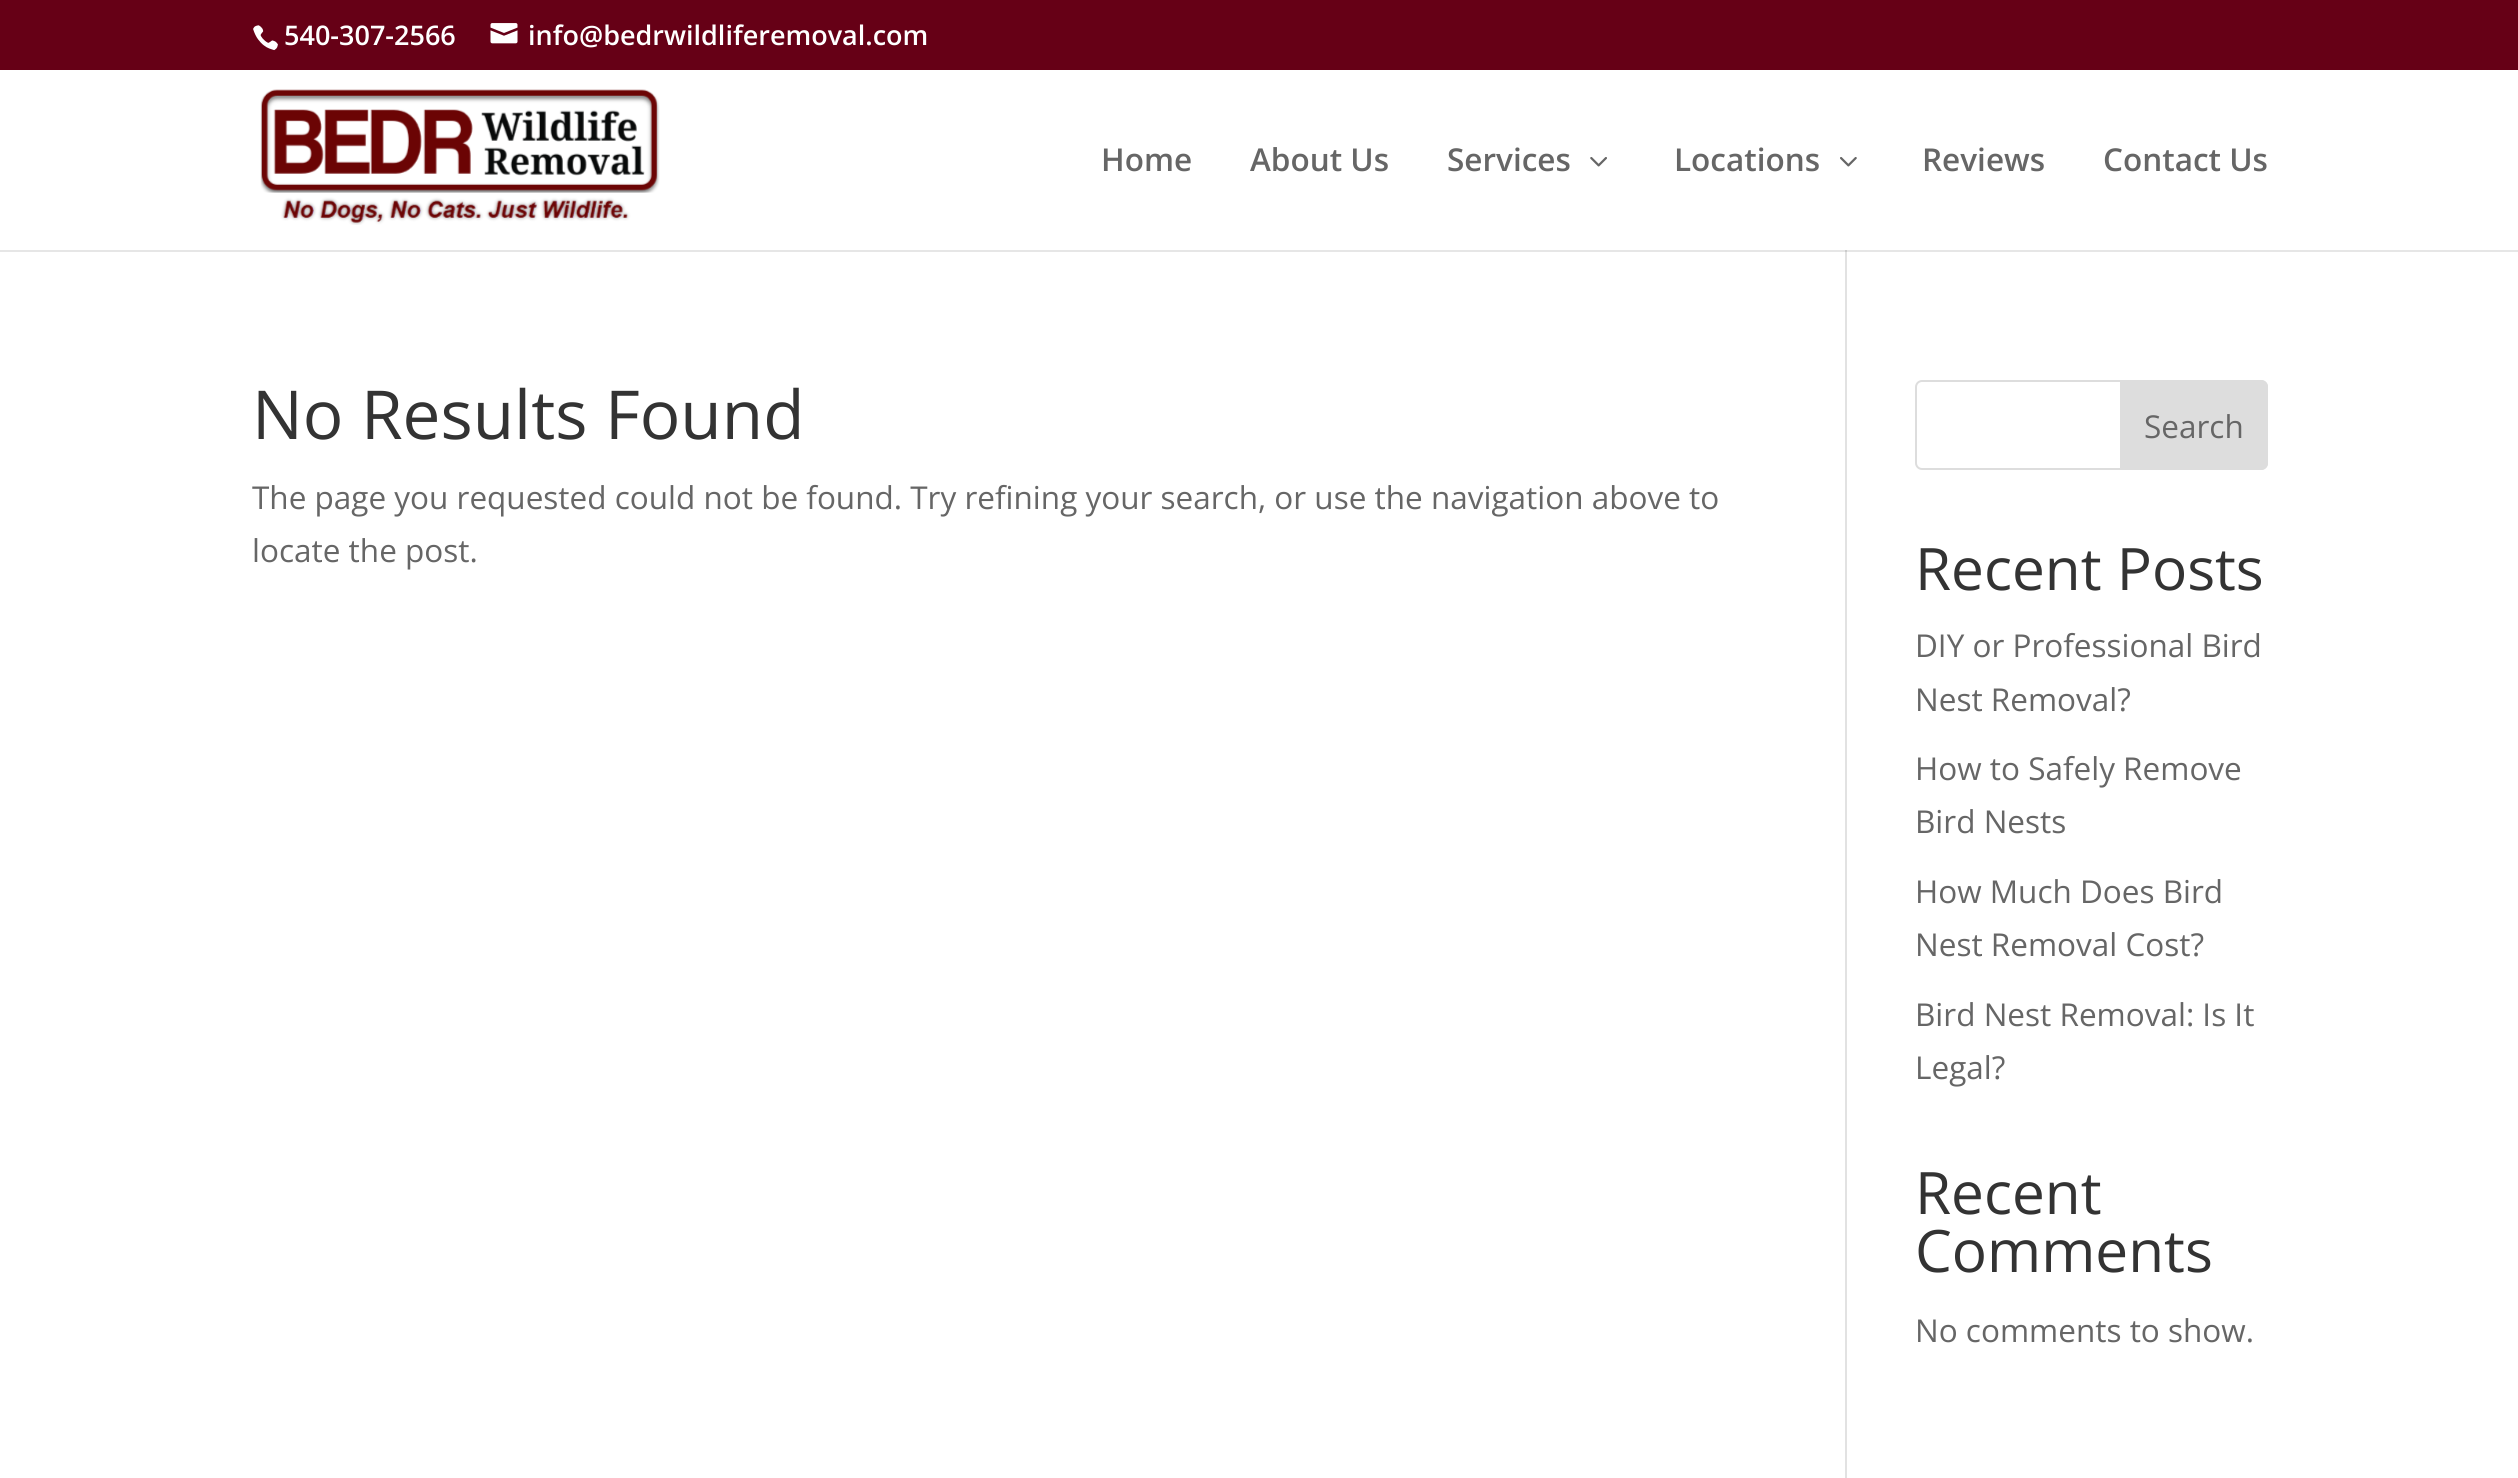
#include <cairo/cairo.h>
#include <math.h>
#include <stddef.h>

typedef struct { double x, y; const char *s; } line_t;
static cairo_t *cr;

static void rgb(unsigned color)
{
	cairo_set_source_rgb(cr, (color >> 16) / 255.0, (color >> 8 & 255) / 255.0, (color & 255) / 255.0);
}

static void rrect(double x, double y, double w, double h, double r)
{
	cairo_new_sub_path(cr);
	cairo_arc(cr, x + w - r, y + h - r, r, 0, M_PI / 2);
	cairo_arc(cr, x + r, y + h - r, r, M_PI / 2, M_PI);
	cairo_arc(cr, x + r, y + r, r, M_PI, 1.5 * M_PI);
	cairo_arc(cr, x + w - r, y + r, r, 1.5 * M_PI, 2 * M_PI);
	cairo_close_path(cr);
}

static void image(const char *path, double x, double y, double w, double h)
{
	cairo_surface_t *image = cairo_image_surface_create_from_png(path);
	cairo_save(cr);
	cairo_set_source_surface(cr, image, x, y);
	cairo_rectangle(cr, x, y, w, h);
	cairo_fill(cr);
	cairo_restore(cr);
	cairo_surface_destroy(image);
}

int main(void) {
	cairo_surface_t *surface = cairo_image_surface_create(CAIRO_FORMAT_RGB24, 2518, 1478);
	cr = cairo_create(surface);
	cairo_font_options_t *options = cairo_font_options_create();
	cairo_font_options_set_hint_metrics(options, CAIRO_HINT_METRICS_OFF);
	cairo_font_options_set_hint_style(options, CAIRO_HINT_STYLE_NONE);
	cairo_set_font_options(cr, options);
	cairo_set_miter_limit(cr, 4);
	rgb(0xffffff);
	cairo_paint(cr);
	rgb(0xe6e6e6);
	cairo_rectangle(cr, 0, 250, 2518, 2);
	cairo_fill(cr);
	rgb(0x660016);
	cairo_rectangle(cr, 0, 0, 2518, 70);
	cairo_fill(cr);
	image("img/1.png", 253, 25, 25, 26);
	image("img/2.png", 490, 23, 28, 21);
	image("img/3.png", 260, 89, 400, 136);
	image("img/4.png", 1590, 157, 17, 10);
	image("img/5.png", 1840, 157, 17, 10);
	rgb(0xe2e2e2);
	cairo_rectangle(cr, 1845, 250, 2, 1228);
	cairo_fill(cr);
	rgb(0xcbcbcb);
	cairo_rectangle(cr, 1845, 250, 2, 2);
	cairo_fill(cr);
	rrect(1916, 381, 351, 88, 6);
	rgb(0xdddddd);
	cairo_stroke(cr);
	cairo_new_path(cr);
	cairo_move_to(cr, 2121, 381);
	cairo_line_to(cr, 2261, 381);
	cairo_curve_to(cr, 2264.5, 381, 2267, 383.5, 2267, 387);
	cairo_line_to(cr, 2267, 463);
	cairo_curve_to(cr, 2267, 466.5, 2264.5, 469, 2261, 469);
	cairo_line_to(cr, 2121, 469);
	cairo_close_path(cr);
	cairo_fill_preserve(cr);
	cairo_stroke(cr);
	cairo_select_font_face(cr, "Open Sans SemiBold", CAIRO_FONT_SLANT_NORMAL, CAIRO_FONT_WEIGHT_NORMAL);
	cairo_set_font_size(cr, 27);
	rgb(0xffffff);
	cairo_move_to(cr, 284, 45);
	cairo_show_text(cr, "540-307-2566");
	cairo_move_to(cr, 528, 45);
	cairo_show_text(cr, "info@bedrwildliferemoval.com");
	cairo_set_font_size(cr, 31.5);
	rgb(0x666666);
	{
		static const line_t items[] = {
			{1101, 171, "Home"},
			{1250, 171, "About Us"},
			{1447, 171, "Services"},
			{1674, 171, "Locations"},
			{1922, 171, "Reviews"},
			{2103, 171, "Contact Us"},
		};
		for (size_t i = 0; i < sizeof items / sizeof *items; i++) {
			cairo_move_to(cr, items[i].x, items[i].y);
			cairo_show_text(cr, items[i].s);
		}
	}
	cairo_select_font_face(cr, "Open Sans", CAIRO_FONT_SLANT_NORMAL, CAIRO_FONT_WEIGHT_NORMAL);
	cairo_set_font_size(cr, 67.5);
	rgb(0x333333);
	cairo_move_to(cr, 252, 439);
	cairo_show_text(cr, "No Results Found");
	cairo_set_font_size(cr, 31.5);
	rgb(0x666666);
	{
		static const line_t items[] = {
			{252, 509, "The page you requested could not be found. Try refining your search, or use the navigation above to"},
			{252, 562, "locate the post."},
			{2144, 438, "Search"},
		};
		for (size_t i = 0; i < sizeof items / sizeof *items; i++) {
			cairo_move_to(cr, items[i].x, items[i].y);
			cairo_show_text(cr, items[i].s);
		}
	}
	cairo_set_font_size(cr, 58.5);
	rgb(0x333333);
	cairo_move_to(cr, 1915, 590);
	cairo_show_text(cr, "Recent Posts");
	cairo_set_font_size(cr, 31.5);
	rgb(0x666666);
	{
		static const line_t items[] = {
			{1915, 657, "DIY or Professional Bird"},
			{1915, 711, "Nest Removal?"},
			{1915, 780, "How to Safely Remove"},
			{1915, 833, "Bird Nests"},
			{1915, 903, "How Much Does Bird"},
			{1915, 956, "Nest Removal Cost?"},
			{1915, 1026, "Bird Nest Removal: Is It"},
			{1915, 1079, "Legal?"},
		};
		for (size_t i = 0; i < sizeof items / sizeof *items; i++) {
			cairo_move_to(cr, items[i].x, items[i].y);
			cairo_show_text(cr, items[i].s);
		}
	}
	cairo_set_font_size(cr, 58.5);
	rgb(0x333333);
	cairo_move_to(cr, 1915, 1214);
	cairo_show_text(cr, "Recent");
	cairo_move_to(cr, 1915, 1272);
	cairo_show_text(cr, "Comments");
	cairo_set_font_size(cr, 31.5);
	rgb(0x666666);
	cairo_move_to(cr, 1915, 1342);
	cairo_show_text(cr, "No comments to show.");
	cairo_surface_write_to_png(surface, "page.png");
	cairo_font_options_destroy(options);
	cairo_destroy(cr);
	cairo_surface_destroy(surface);
	return 0;
}
